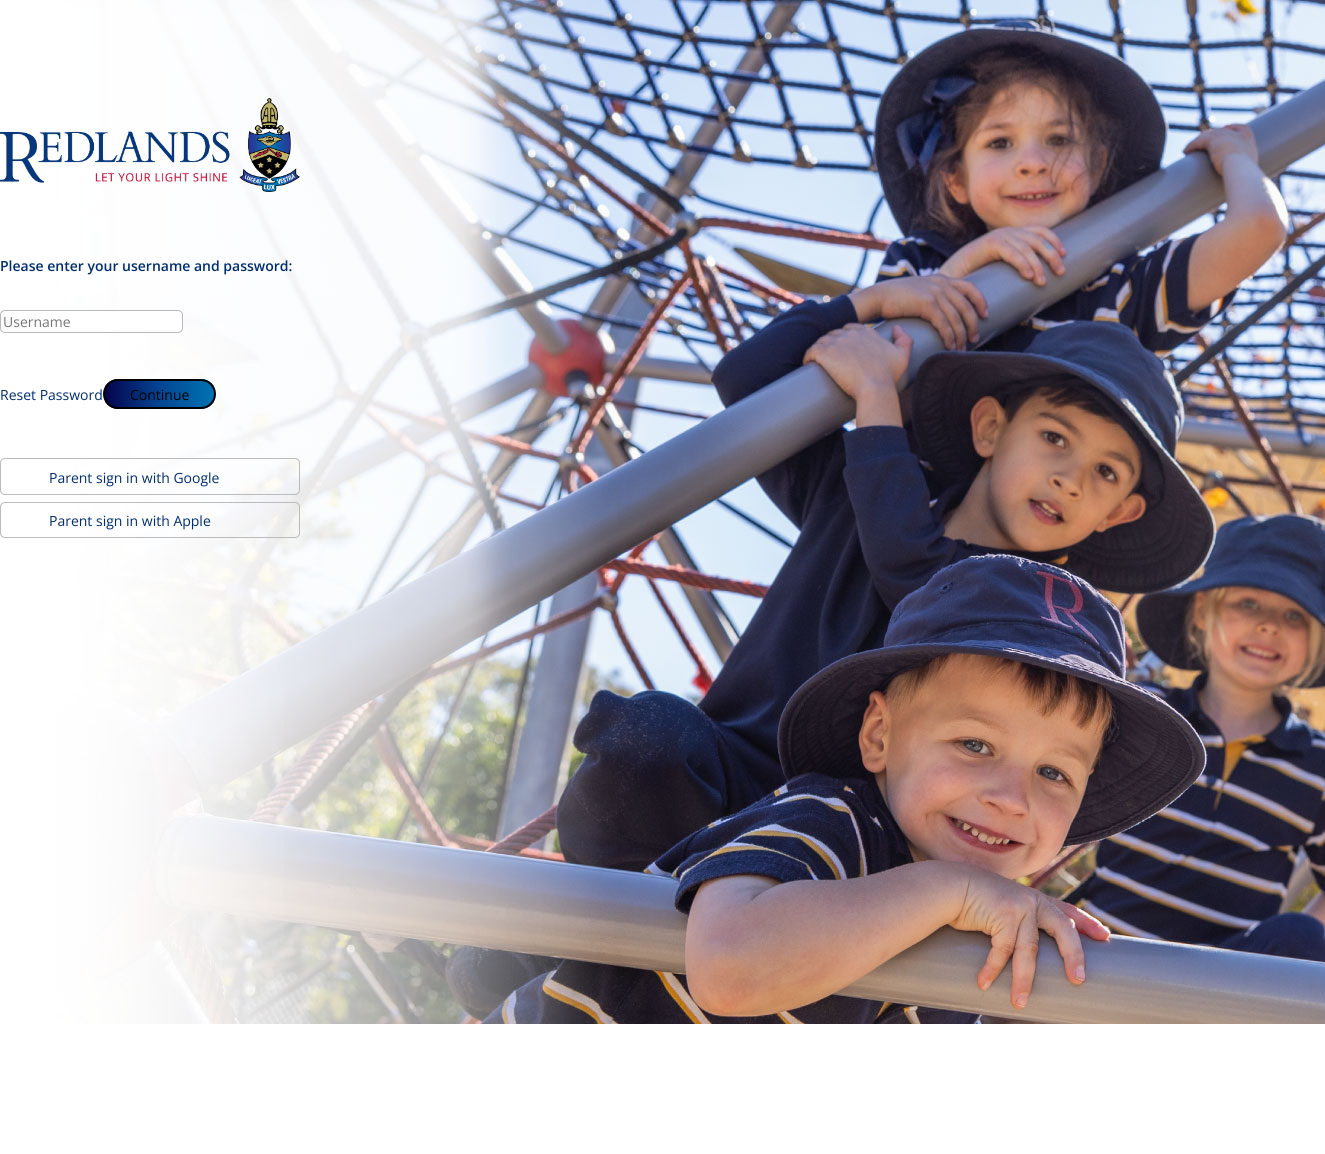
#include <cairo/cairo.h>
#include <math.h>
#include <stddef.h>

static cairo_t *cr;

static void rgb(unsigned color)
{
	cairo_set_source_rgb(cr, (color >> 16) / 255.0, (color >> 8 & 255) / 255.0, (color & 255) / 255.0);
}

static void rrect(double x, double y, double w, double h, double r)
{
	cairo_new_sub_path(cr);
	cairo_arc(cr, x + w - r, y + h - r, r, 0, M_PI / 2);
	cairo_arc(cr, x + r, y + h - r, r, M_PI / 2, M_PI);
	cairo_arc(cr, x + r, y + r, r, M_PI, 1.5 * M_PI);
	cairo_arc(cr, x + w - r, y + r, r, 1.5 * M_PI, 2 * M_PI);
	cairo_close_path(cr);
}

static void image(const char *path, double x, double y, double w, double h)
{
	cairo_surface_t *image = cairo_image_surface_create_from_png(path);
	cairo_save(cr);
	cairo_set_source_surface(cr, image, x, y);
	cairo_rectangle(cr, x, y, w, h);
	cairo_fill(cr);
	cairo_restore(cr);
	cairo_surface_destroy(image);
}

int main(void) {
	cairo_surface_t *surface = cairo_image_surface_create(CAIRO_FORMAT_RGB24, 1325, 1154);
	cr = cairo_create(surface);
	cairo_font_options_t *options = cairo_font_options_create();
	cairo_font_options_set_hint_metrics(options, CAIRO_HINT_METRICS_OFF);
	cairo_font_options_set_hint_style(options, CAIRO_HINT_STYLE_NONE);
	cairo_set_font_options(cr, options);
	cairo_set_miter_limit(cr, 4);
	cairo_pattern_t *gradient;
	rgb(0xffffff);
	cairo_paint(cr);
	image("img/1.png", 56, 0, 1269, 1024);
	gradient = cairo_pattern_create_linear(0, 585, 300, 585);
	cairo_pattern_add_color_stop_rgba(gradient, 0, 1, 1, 1, 1);
	cairo_pattern_add_color_stop_rgba(gradient, 1, 1, 1, 1, 0);
	cairo_set_source(cr, gradient);
	cairo_pattern_destroy(gradient);
	cairo_rectangle(cr, 56, 326, 228, 698);
	cairo_fill(cr);
	image("img/2.png", 0, 98, 300, 94);
	rgb(0xffffff);
	rrect(0.5, 310.5, 182, 22, 4.5);
	cairo_fill_preserve(cr);
	rgb(0xbababa);
	cairo_set_line_width(cr, 1);
	cairo_stroke(cr);
	cairo_save(cr);
	rrect(103, 379, 113, 30, 15);
	cairo_clip(cr);
	gradient = cairo_pattern_create_linear(105, 394, 214, 394);
	cairo_pattern_add_color_stop_rgba(gradient, 0, 0.024, 0.012, 0.298, 1);
	cairo_pattern_add_color_stop_rgba(gradient, 0.51, 0.012, 0.275, 0.58, 1);
	cairo_pattern_add_color_stop_rgba(gradient, 1, 0, 0.451, 0.698, 1);
	cairo_set_source(cr, gradient);
	cairo_pattern_destroy(gradient);
	cairo_rectangle(cr, 105, 379, 109, 30);
	cairo_fill(cr);
	cairo_restore(cr);
	rrect(104, 380, 111, 28, 14);
	rgb(0x000000);
	cairo_set_line_width(cr, 2);
	cairo_stroke(cr);
	rrect(0.5, 458.5, 299, 36, 4.5);
	rgb(0xbbbbbb);
	cairo_set_line_width(cr, 1);
	cairo_stroke(cr);
	rrect(0.5, 502.5, 299, 35, 4.5);
	cairo_stroke(cr);
	cairo_select_font_face(cr, "Open Sans SemiBold", CAIRO_FONT_SLANT_NORMAL, CAIRO_FONT_WEIGHT_NORMAL);
	cairo_set_font_size(cr, 14);
	rgb(0x002e6e);
	cairo_move_to(cr, 0, 271);
	cairo_show_text(cr, "Please enter your username and password:");
	cairo_select_font_face(cr, "Open Sans", CAIRO_FONT_SLANT_NORMAL, CAIRO_FONT_WEIGHT_NORMAL);
	rgb(0x757575);
	cairo_move_to(cr, 3, 327);
	cairo_show_text(cr, "Username");
	rgb(0x002e6e);
	cairo_move_to(cr, 0, 400);
	cairo_show_text(cr, "Reset Password");
	rgb(0x000000);
	cairo_move_to(cr, 130, 400);
	cairo_show_text(cr, "Continue");
	rgb(0x002e6e);
	cairo_move_to(cr, 49, 483);
	cairo_show_text(cr, "Parent sign in with Google");
	cairo_move_to(cr, 49, 526);
	cairo_show_text(cr, "Parent sign in with Apple");
	cairo_surface_write_to_png(surface, "page.png");
	cairo_font_options_destroy(options);
	cairo_destroy(cr);
	cairo_surface_destroy(surface);
	return 0;
}
